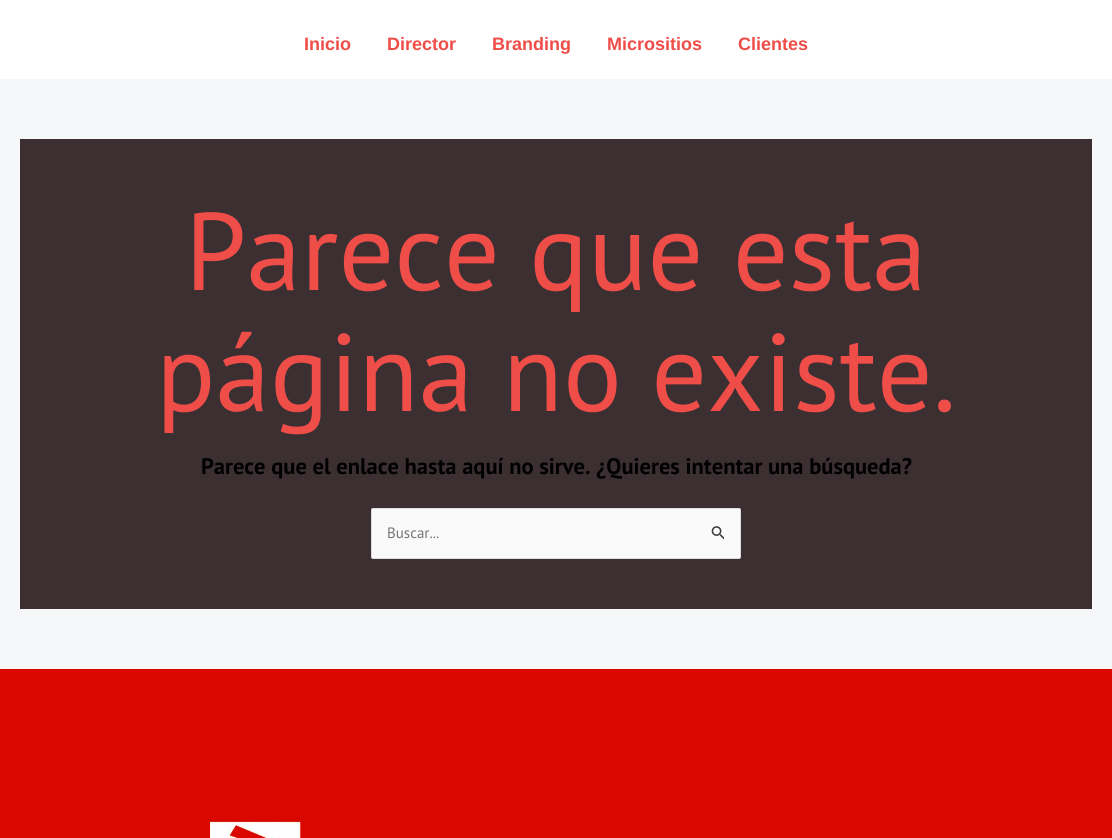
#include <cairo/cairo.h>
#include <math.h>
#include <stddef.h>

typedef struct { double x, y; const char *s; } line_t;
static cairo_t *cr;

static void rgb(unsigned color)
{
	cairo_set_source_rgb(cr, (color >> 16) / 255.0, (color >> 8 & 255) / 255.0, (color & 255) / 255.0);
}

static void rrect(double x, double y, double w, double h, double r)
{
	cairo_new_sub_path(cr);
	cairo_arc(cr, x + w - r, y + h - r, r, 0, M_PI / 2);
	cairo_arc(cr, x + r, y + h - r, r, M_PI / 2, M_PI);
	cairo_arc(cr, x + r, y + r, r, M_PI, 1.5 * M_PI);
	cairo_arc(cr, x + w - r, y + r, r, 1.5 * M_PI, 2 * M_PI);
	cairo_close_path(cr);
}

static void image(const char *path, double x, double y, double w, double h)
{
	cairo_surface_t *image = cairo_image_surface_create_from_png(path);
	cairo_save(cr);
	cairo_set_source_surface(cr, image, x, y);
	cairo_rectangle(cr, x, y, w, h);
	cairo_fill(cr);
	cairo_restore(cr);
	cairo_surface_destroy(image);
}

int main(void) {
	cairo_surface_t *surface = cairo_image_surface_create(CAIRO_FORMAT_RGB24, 1112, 838);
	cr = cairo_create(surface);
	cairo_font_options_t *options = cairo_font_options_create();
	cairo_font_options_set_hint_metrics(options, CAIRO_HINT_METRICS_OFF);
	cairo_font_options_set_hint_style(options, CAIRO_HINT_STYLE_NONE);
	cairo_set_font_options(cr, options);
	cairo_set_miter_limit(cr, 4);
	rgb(0xf6f7f8);
	cairo_paint(cr);
	rgb(0xffffff);
	cairo_rectangle(cr, 0, 0, 1112, 79);
	cairo_fill(cr);
	rgb(0x3c2f32);
	cairo_rectangle(cr, 20, 139, 1072, 470);
	cairo_fill(cr);
	rgb(0xfafafa);
	rrect(371.5, 508.5, 369, 50, 1.5);
	cairo_fill_preserve(cr);
	rgb(0xdddddd);
	cairo_set_line_width(cr, 1);
	cairo_stroke(cr);
	image("img/1.png", 711, 526, 13, 14);
	rgb(0xd90700);
	cairo_rectangle(cr, 0, 669, 1112, 169);
	cairo_fill(cr);
	image("img/2.png", 210, 821, 91, 17);
	cairo_select_font_face(cr, "Liberation Sans", CAIRO_FONT_SLANT_NORMAL, CAIRO_FONT_WEIGHT_BOLD);
	cairo_set_font_size(cr, 18);
	rgb(0xef4d48);
	{
		static const line_t items[] = {
			{304, 50, "Inicio"},
			{387, 50, "Director"},
			{492, 50, "Branding"},
			{607, 50, "Micrositios"},
			{738, 50, "Clientes"},
		};
		for (size_t i = 0; i < sizeof items / sizeof *items; i++) {
			cairo_move_to(cr, items[i].x, items[i].y);
			cairo_show_text(cr, items[i].s);
		}
	}
	cairo_select_font_face(cr, "PT Sans", CAIRO_FONT_SLANT_NORMAL, CAIRO_FONT_WEIGHT_NORMAL);
	cairo_set_font_size(cr, 110);
	cairo_move_to(cr, 185, 290);
	cairo_show_text(cr, "Parece que esta");
	cairo_move_to(cr, 156, 411);
	cairo_show_text(cr, "página no existe.");
	cairo_select_font_face(cr, "PT Sans", CAIRO_FONT_SLANT_NORMAL, CAIRO_FONT_WEIGHT_BOLD);
	cairo_set_font_size(cr, 22.5);
	rgb(0x000000);
	cairo_move_to(cr, 201, 474);
	cairo_show_text(cr, "Parece que el enlace hasta aquí no sirve. ¿Quieres intentar una búsqueda?");
	cairo_select_font_face(cr, "PT Sans", CAIRO_FONT_SLANT_NORMAL, CAIRO_FONT_WEIGHT_NORMAL);
	cairo_set_font_size(cr, 15);
	rgb(0x757575);
	cairo_move_to(cr, 387, 538);
	cairo_show_text(cr, "Buscar...");
	cairo_surface_write_to_png(surface, "page.png");
	cairo_font_options_destroy(options);
	cairo_destroy(cr);
	cairo_surface_destroy(surface);
	return 0;
}
